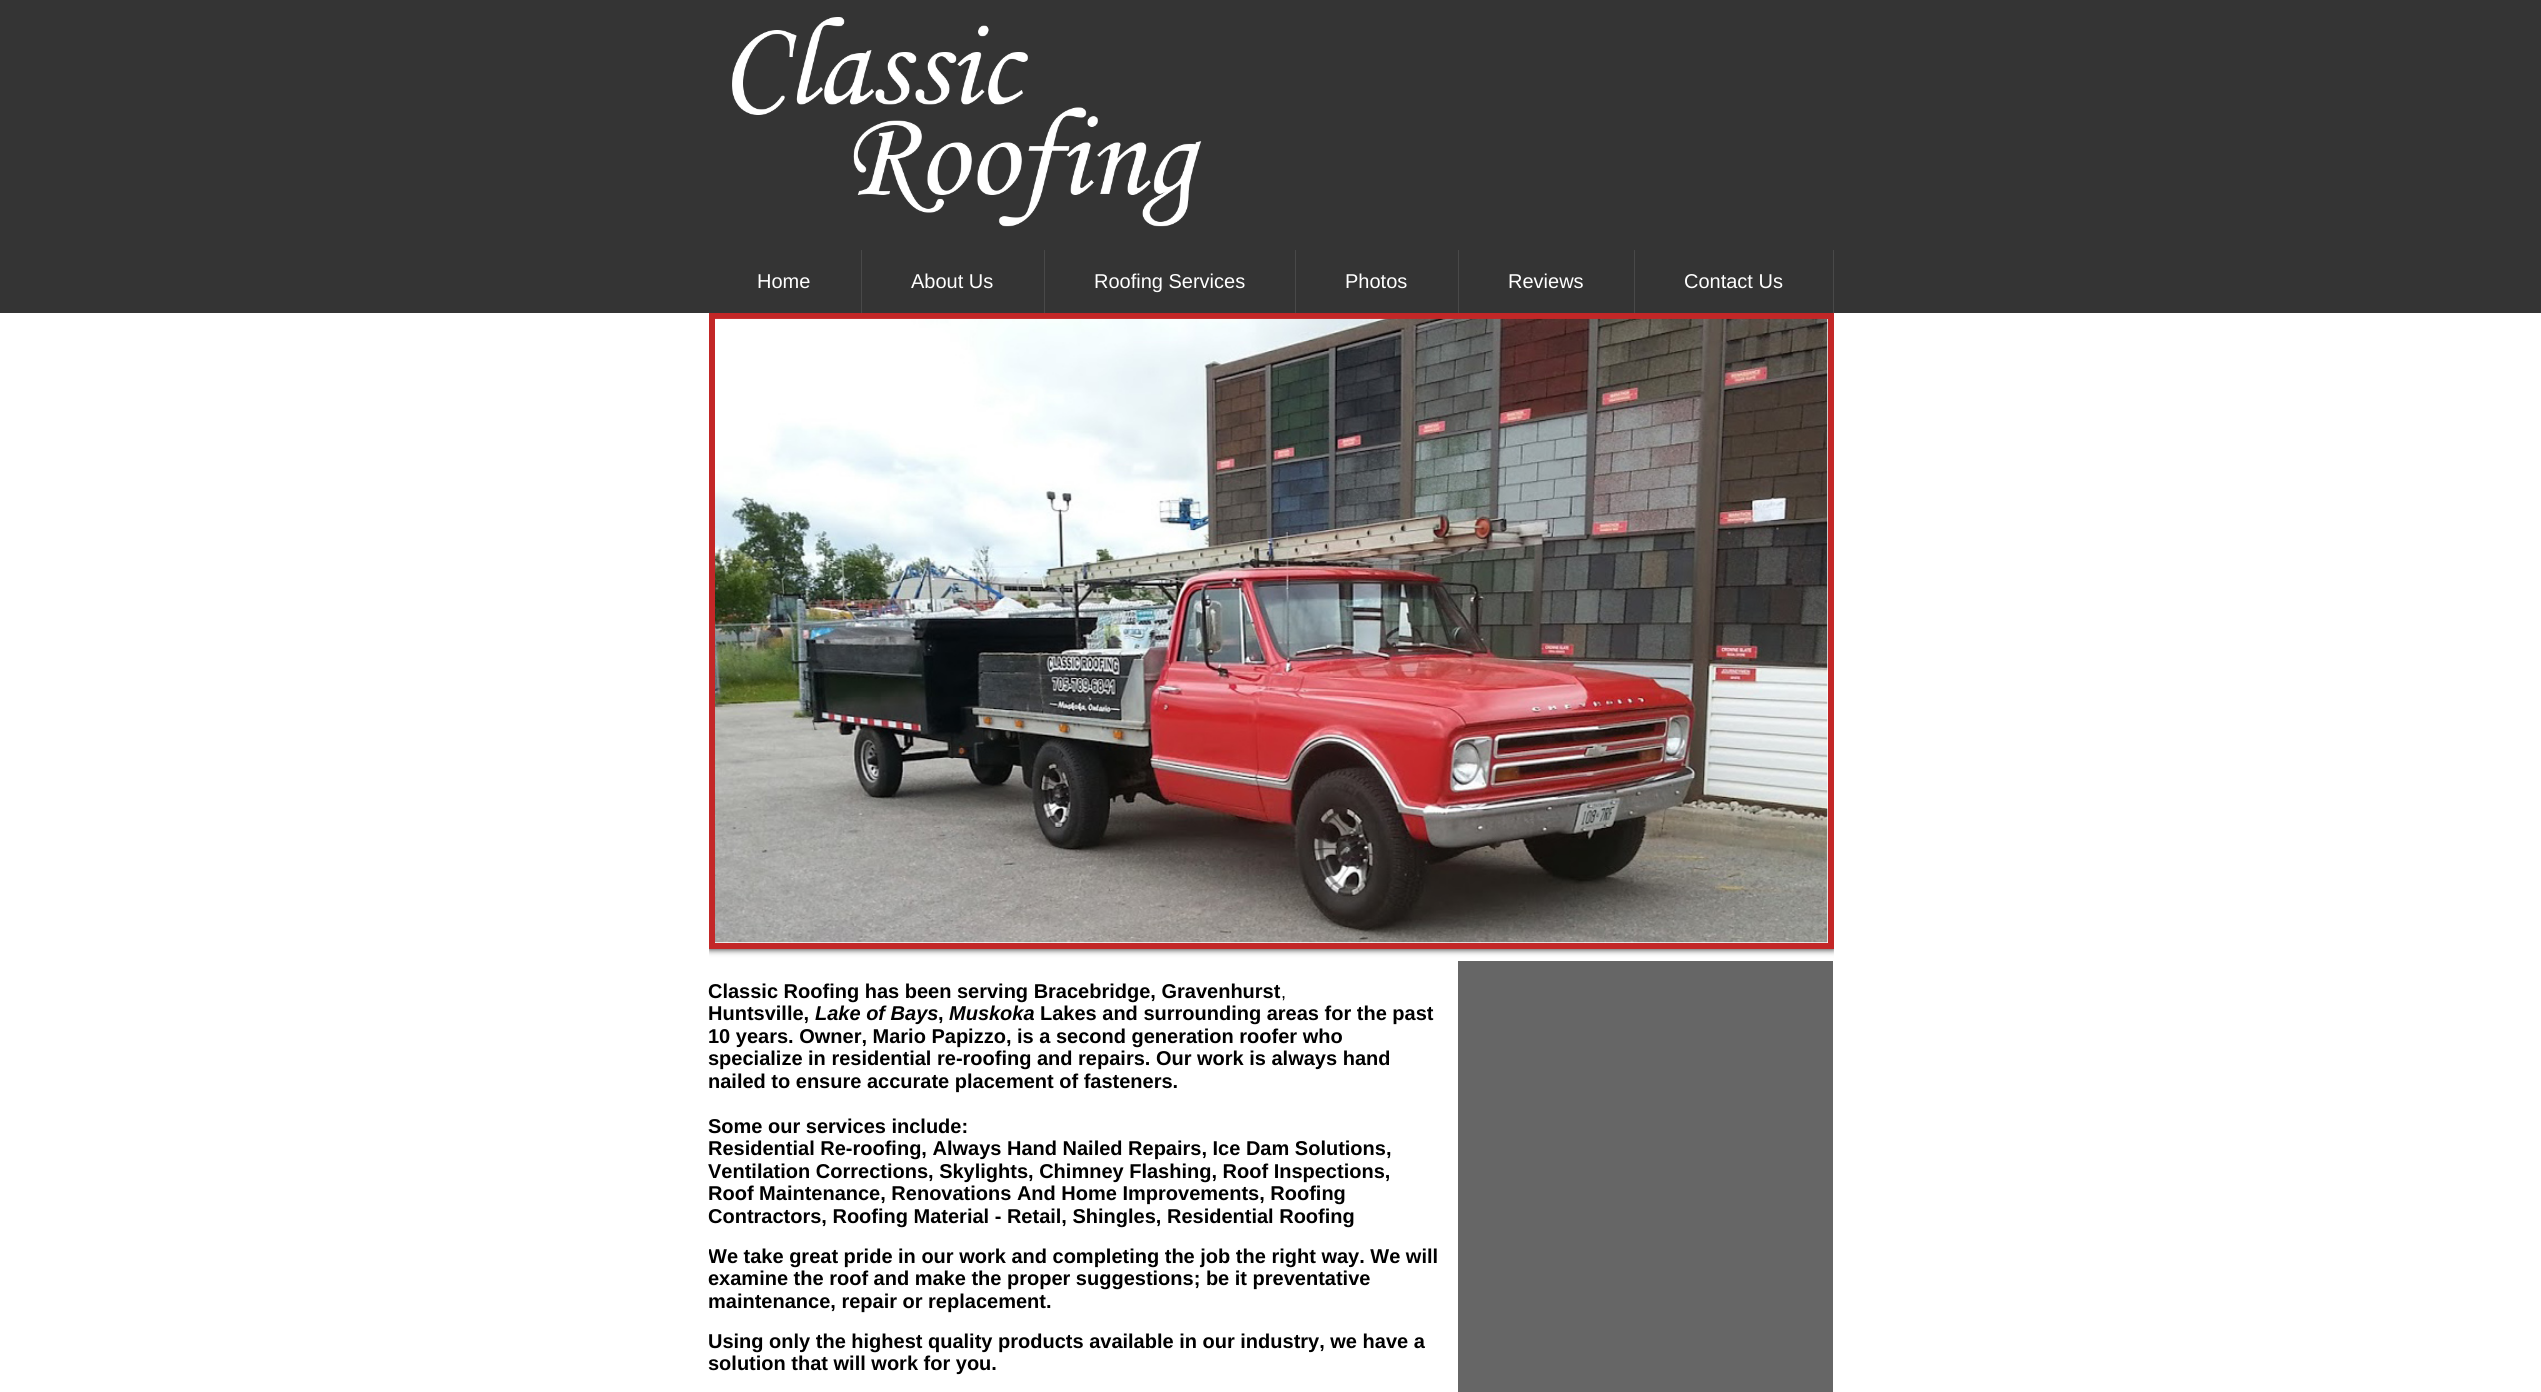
#include <cairo/cairo.h>
#include <math.h>
#include <stddef.h>

typedef struct { double x, y; const char *s; } line_t;
typedef struct { double x, y, w, h; unsigned color; } box_t;
static cairo_t *cr;

static void rgb(unsigned color)
{
	cairo_set_source_rgb(cr, (color >> 16) / 255.0, (color >> 8 & 255) / 255.0, (color & 255) / 255.0);
}

static void rrect(double x, double y, double w, double h, double r)
{
	cairo_new_sub_path(cr);
	cairo_arc(cr, x + w - r, y + h - r, r, 0, M_PI / 2);
	cairo_arc(cr, x + r, y + h - r, r, M_PI / 2, M_PI);
	cairo_arc(cr, x + r, y + r, r, M_PI, 1.5 * M_PI);
	cairo_arc(cr, x + w - r, y + r, r, 1.5 * M_PI, 2 * M_PI);
	cairo_close_path(cr);
}

static void soft_shadow(double x, double y, double w, double h, double r, double blur, double alpha)
{
	cairo_push_group_with_content(cr, CAIRO_CONTENT_ALPHA);
	cairo_set_operator(cr, CAIRO_OPERATOR_SOURCE);
	for (int i = 15; i >= -15 && fmin(w, h) + blur * i / 3 > 0; i -= 2) {
		double e = blur * i / 6;
		cairo_set_source_rgba(cr, 0, 0, 0, alpha * erfc((i - 1) / 8.5) / 2);
		rrect(x - e, y - e, w + 2 * e, h + 2 * e, fmax(0, fmin(r + e + blur * .6, fmin(w, h) / 2 + e)));
		cairo_fill(cr);
	}
	cairo_pattern_t *soft = cairo_pop_group(cr);
	cairo_mask(cr, soft);
	cairo_pattern_destroy(soft);
}

static void image(const char *path, double x, double y, double w, double h)
{
	cairo_surface_t *image = cairo_image_surface_create_from_png(path);
	cairo_save(cr);
	cairo_set_source_surface(cr, image, x, y);
	cairo_rectangle(cr, x, y, w, h);
	cairo_fill(cr);
	cairo_restore(cr);
	cairo_surface_destroy(image);
}

int main(void) {
	cairo_surface_t *surface = cairo_image_surface_create(CAIRO_FORMAT_RGB24, 2541, 1392);
	cr = cairo_create(surface);
	cairo_font_options_t *options = cairo_font_options_create();
	cairo_font_options_set_hint_metrics(options, CAIRO_HINT_METRICS_OFF);
	cairo_font_options_set_hint_style(options, CAIRO_HINT_STYLE_NONE);
	cairo_set_font_options(cr, options);
	cairo_set_miter_limit(cr, 4);
	rgb(0xffffff);
	cairo_paint(cr);
	rgb(0x343434);
	cairo_rectangle(cr, 0, 0, 2541, 250);
	cairo_fill(cr);
	image("img/1.png", 732, 17, 470, 210);
	cairo_save(cr);
	cairo_rectangle(cr, 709, 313, 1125, 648);
	cairo_clip(cr);
	rgb(0x4a4a4a);
	soft_shadow(709, 314, 1125, 636, 0, 3, 1);
	cairo_restore(cr);
	{
		static const box_t items[] = {
			{0, 250, 2541, 63, 0x343434},
			{861, 250, 1, 63, 0x494949},
			{1044, 250, 1, 63, 0x494949},
			{1295, 250, 1, 63, 0x494949},
			{1458, 250, 1, 63, 0x494949},
			{1833, 250, 1, 63, 0x494949},
			{1634, 250, 1, 63, 0x494949},
		};
		for (size_t i = 0; i < sizeof items / sizeof *items; i++) {
			rgb(items[i].color);
			cairo_rectangle(cr, items[i].x, items[i].y, items[i].w, items[i].h);
			cairo_fill(cr);
		}
	}
	rgb(0xffffff);
	cairo_rectangle(cr, 712, 316, 1119, 630);
	cairo_fill_preserve(cr);
	rgb(0xc32727);
	cairo_set_line_width(cr, 6);
	cairo_stroke(cr);
	image("img/2.png", 715, 318, 1113, 625);
	rgb(0x666666);
	cairo_rectangle(cr, 1458, 961, 375, 431);
	cairo_fill(cr);
	cairo_select_font_face(cr, "Liberation Sans", CAIRO_FONT_SLANT_NORMAL, CAIRO_FONT_WEIGHT_NORMAL);
	cairo_set_font_size(cr, 20);
	rgb(0xffffff);
	{
		static const line_t items[] = {
			{757, 288, "Home"},
			{911, 288, "About Us"},
			{1094, 288, "Roofing Services"},
			{1345, 288, "Photos"},
			{1508, 288, "Reviews"},
			{1684, 288, "Contact Us"},
		};
		for (size_t i = 0; i < sizeof items / sizeof *items; i++) {
			cairo_move_to(cr, items[i].x, items[i].y);
			cairo_show_text(cr, items[i].s);
		}
	}
	cairo_select_font_face(cr, "Liberation Sans", CAIRO_FONT_SLANT_NORMAL, CAIRO_FONT_WEIGHT_BOLD);
	rgb(0x000000);
	cairo_move_to(cr, 708, 998);
	cairo_show_text(cr, "Classic Roofing has been serving Bracebridge, Gravenhurst");
	cairo_select_font_face(cr, "Liberation Sans", CAIRO_FONT_SLANT_NORMAL, CAIRO_FONT_WEIGHT_NORMAL);
	cairo_set_font_size(cr, 18);
	cairo_move_to(cr, 1281, 998);
	cairo_show_text(cr, ",");
	cairo_select_font_face(cr, "Liberation Sans", CAIRO_FONT_SLANT_NORMAL, CAIRO_FONT_WEIGHT_BOLD);
	cairo_set_font_size(cr, 20);
	cairo_move_to(cr, 708, 1020);
	cairo_show_text(cr, "Huntsville,");
	cairo_select_font_face(cr, "Liberation Sans", CAIRO_FONT_SLANT_ITALIC, CAIRO_FONT_WEIGHT_BOLD);
	cairo_move_to(cr, 815, 1020);
	cairo_show_text(cr, "Lake of Bays");
	cairo_select_font_face(cr, "Liberation Sans", CAIRO_FONT_SLANT_NORMAL, CAIRO_FONT_WEIGHT_BOLD);
	cairo_move_to(cr, 938, 1020);
	cairo_show_text(cr, ",");
	cairo_select_font_face(cr, "Liberation Sans", CAIRO_FONT_SLANT_ITALIC, CAIRO_FONT_WEIGHT_BOLD);
	cairo_move_to(cr, 949, 1020);
	cairo_show_text(cr, "Muskoka");
	cairo_select_font_face(cr, "Liberation Sans", CAIRO_FONT_SLANT_NORMAL, CAIRO_FONT_WEIGHT_BOLD);
	{
		static const line_t items[] = {
			{1040, 1020, "Lakes and surrounding areas for the past"},
			{708, 1043, "10 years. Owner, Mario Papizzo, is a second generation roofer who"},
			{708, 1065, "specialize in residential re-roofing and repairs. Our work is always hand"},
			{708, 1088, "nailed to ensure accurate placement of fasteners."},
			{708, 1133, "Some our services include:"},
			{708, 1155, "Residential Re-roofing, Always Hand Nailed Repairs, Ice Dam Solutions,"},
			{708, 1178, "Ventilation Corrections, Skylights, Chimney Flashing, Roof Inspections,"},
			{708, 1200, "Roof Maintenance, Renovations And Home Improvements, Roofing"},
			{708, 1223, "Contractors, Roofing Material - Retail, Shingles, Residential Roofing"},
		};
		for (size_t i = 0; i < sizeof items / sizeof *items; i++) {
			cairo_move_to(cr, items[i].x, items[i].y);
			cairo_show_text(cr, items[i].s);
		}
	}
	cairo_save(cr);
	cairo_rectangle(cr, 709, 980, 730, 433);
	cairo_clip(cr);
	cairo_move_to(cr, 708, 1263);
	cairo_show_text(cr, "We take great pride in our work and completing the job the right way. We will");
	cairo_restore(cr);
	{
		static const line_t items[] = {
			{708, 1285, "examine the roof and make the proper suggestions; be it preventative"},
			{708, 1308, "maintenance, repair or replacement."},
			{708, 1348, "Using only the highest quality products available in our industry, we have a"},
			{708, 1370, "solution that will work for you."},
		};
		for (size_t i = 0; i < sizeof items / sizeof *items; i++) {
			cairo_move_to(cr, items[i].x, items[i].y);
			cairo_show_text(cr, items[i].s);
		}
	}
	cairo_surface_write_to_png(surface, "page.png");
	cairo_font_options_destroy(options);
	cairo_destroy(cr);
	cairo_surface_destroy(surface);
	return 0;
}
